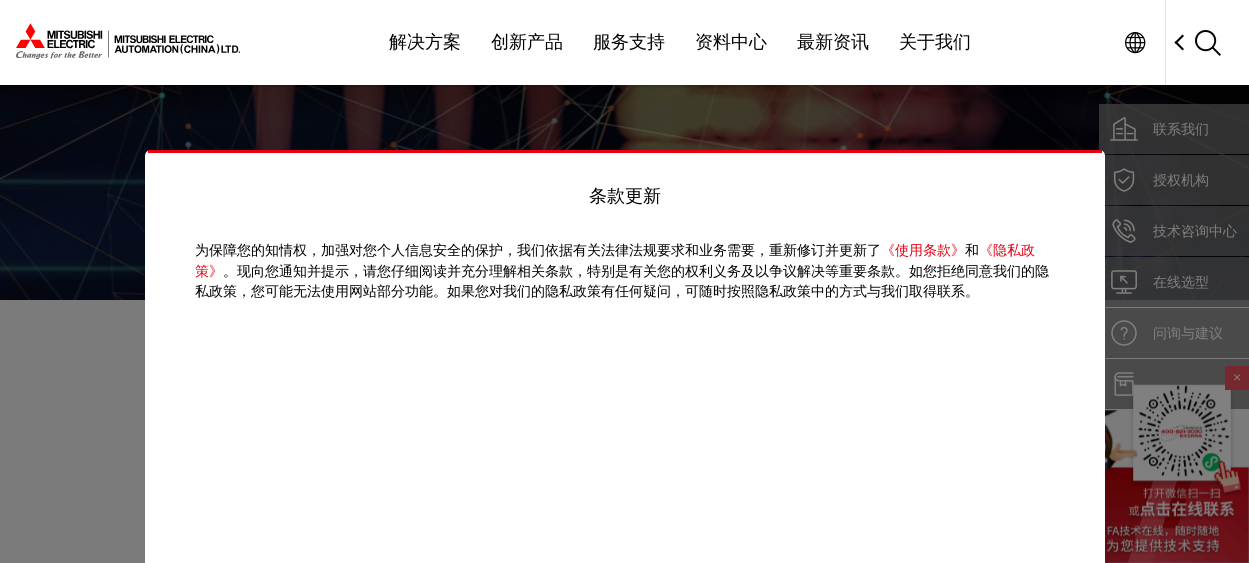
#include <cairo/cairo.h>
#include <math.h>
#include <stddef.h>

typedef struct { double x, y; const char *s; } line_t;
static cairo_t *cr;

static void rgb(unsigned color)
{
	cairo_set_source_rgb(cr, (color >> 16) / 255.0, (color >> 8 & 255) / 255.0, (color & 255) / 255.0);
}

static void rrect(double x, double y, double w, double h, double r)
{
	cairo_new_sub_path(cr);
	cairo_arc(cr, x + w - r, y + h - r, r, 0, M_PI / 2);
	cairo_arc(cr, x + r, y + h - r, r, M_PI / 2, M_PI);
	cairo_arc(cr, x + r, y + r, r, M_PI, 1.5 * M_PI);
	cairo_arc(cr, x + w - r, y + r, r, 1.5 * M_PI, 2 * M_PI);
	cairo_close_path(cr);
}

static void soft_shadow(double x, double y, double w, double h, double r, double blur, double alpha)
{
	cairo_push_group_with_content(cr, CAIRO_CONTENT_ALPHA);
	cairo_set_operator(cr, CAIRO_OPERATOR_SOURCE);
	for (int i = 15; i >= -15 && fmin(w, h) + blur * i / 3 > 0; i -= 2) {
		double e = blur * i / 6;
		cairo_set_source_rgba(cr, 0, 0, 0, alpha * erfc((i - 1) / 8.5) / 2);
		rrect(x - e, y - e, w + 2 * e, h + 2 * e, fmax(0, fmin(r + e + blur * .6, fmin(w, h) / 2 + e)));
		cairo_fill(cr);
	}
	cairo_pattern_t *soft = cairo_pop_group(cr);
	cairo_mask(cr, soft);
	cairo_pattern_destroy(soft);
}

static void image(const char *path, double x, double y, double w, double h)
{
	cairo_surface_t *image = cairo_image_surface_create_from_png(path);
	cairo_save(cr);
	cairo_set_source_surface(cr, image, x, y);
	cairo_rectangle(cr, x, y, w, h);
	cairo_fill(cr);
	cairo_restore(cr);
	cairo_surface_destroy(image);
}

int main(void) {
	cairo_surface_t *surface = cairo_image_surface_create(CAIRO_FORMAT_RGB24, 1249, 563);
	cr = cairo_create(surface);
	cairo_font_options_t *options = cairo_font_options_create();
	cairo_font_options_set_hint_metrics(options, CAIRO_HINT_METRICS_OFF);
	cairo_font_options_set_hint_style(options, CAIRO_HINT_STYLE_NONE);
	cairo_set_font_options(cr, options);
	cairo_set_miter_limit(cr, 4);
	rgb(0x7b7b7b);
	cairo_paint(cr);
	image("img/4.png", 0, 85, 1249, 215);
	rgb(0x000000);
	soft_shadow(0, 2, 1249, 85, 0, 1.5, 0.2);
	rgb(0xffffff);
	cairo_rectangle(cr, 0, 0, 1249, 85);
	cairo_fill(cr);
	image("img/1.png", 16, 23, 224, 36);
	image("img/2.png", 1125, 32, 21, 22);
	rgb(0xe0e0e0);
	cairo_rectangle(cr, 1165, 0, 1, 85);
	cairo_fill(cr);
	rgb(0x000000);
	cairo_new_path(cr);
	cairo_move_to(cr, 1174.5, 42.5);
	cairo_line_to(cr, 1182.5, 34.5);
	cairo_line_to(cr, 1184, 36);
	cairo_line_to(cr, 1176, 44);
	cairo_close_path(cr);
	cairo_fill(cr);
	cairo_new_path(cr);
	cairo_move_to(cr, 1174.5, 42.5);
	cairo_line_to(cr, 1176, 41);
	cairo_line_to(cr, 1184, 49);
	cairo_line_to(cr, 1182.5, 50.5);
	cairo_close_path(cr);
	cairo_fill(cr);
	image("img/3.png", 1195, 30, 26, 26);
	cairo_set_source_rgba(cr, 0.243, 0.243, 0.243, 0.8);
	cairo_rectangle(cr, 1099, 104, 150, 50);
	cairo_fill(cr);
	cairo_rectangle(cr, 1104, 155, 145, 50);
	cairo_fill(cr);
	rgb(0xffffff);
	cairo_new_path(cr);
	cairo_move_to(cr, 151, 150);
	cairo_line_to(cr, 1099, 150);
	cairo_curve_to(cr, 1102.5, 150, 1105, 152.5, 1105, 156);
	cairo_line_to(cr, 1105, 563);
	cairo_line_to(cr, 145, 563);
	cairo_line_to(cr, 145, 156);
	cairo_curve_to(cr, 145, 152.5, 147.5, 150, 151, 150);
	cairo_close_path(cr);
	cairo_fill(cr);
	rgb(0xe60012);
	cairo_rectangle(cr, 148, 150, 954, 3);
	cairo_fill(cr);
	image("img/5.png", 1110, 117, 28, 24);
	image("img/6.png", 1114, 168, 21, 24);
	cairo_set_source_rgba(cr, 0.243, 0.243, 0.243, 0.8);
	cairo_rectangle(cr, 1105, 206, 144, 50);
	cairo_fill(cr);
	image("img/7.png", 1112, 219, 24, 24);
	cairo_rectangle(cr, 1105, 257, 144, 50);
	cairo_fill(cr);
	image("img/8.png", 1111, 270, 26, 24);
	rgb(0x4a4a4a);
	cairo_rectangle(cr, 1105, 308, 144, 50);
	cairo_fill(cr);
	image("img/9.png", 1111, 320, 26, 26);
	cairo_rectangle(cr, 1105, 359, 144, 50);
	cairo_fill(cr);
	image("img/10.png", 1114, 372, 20, 24);
	image("img/11.png", 1105, 384, 144, 179);
	rgb(0x77272e);
	cairo_rectangle(cr, 1225, 366, 24, 24);
	cairo_fill(cr);
	cairo_select_font_face(cr, "WenQuanYi Zen Hei Medium", CAIRO_FONT_SLANT_NORMAL, CAIRO_FONT_WEIGHT_NORMAL);
	cairo_set_font_size(cr, 18);
	rgb(0x000000);
	{
		static const line_t items[] = {
			{389, 48, "解决方案"},
			{491, 48, "创新产品"},
			{593, 48, "服务支持"},
			{695, 48, "资料中心"},
			{797, 48, "最新资讯"},
			{899, 48, "关于我们"},
			{589, 202, "条款更新"},
		};
		for (size_t i = 0; i < sizeof items / sizeof *items; i++) {
			cairo_move_to(cr, items[i].x, items[i].y);
			cairo_show_text(cr, items[i].s);
		}
	}
	cairo_set_font_size(cr, 14);
	cairo_move_to(cr, 195, 255);
	cairo_show_text(cr, "为保障您的知情权，加强对您个人信息安全的保护，我们依据有关法律法规要求和业务需要，重新修订并更新了");
	rgb(0xe60012);
	cairo_move_to(cr, 881, 255);
	cairo_show_text(cr, "《使用条款》");
	rgb(0x000000);
	cairo_move_to(cr, 965, 255);
	cairo_show_text(cr, "和");
	rgb(0xe60012);
	cairo_move_to(cr, 979, 255);
	cairo_show_text(cr, "《隐私政");
	cairo_move_to(cr, 195, 276);
	cairo_show_text(cr, "策》");
	rgb(0x000000);
	cairo_move_to(cr, 223, 276);
	cairo_show_text(cr, "。现向您通知并提示，请您仔细阅读并充分理解相关条款，特别是有关您的权利义务及以争议解决等重要条款。如您拒绝同意我们的隐");
	cairo_move_to(cr, 195, 296);
	cairo_show_text(cr, "私政策，您可能无法使用网站部分功能。如果您对我们的隐私政策有任何疑问，可随时按照隐私政策中的方式与我们取得联系。");
	rgb(0x808080);
	{
		static const line_t items[] = {
			{1153, 134, "联系我们"},
			{1153, 185, "授权机构"},
			{1153, 236, "技术咨询中心"},
			{1153, 287, "在线选型"},
			{1153, 338, "问询与建议"},
		};
		for (size_t i = 0; i < sizeof items / sizeof *items; i++) {
			cairo_move_to(cr, items[i].x, items[i].y);
			cairo_show_text(cr, items[i].s);
		}
	}
	cairo_select_font_face(cr, "Liberation Sans", CAIRO_FONT_SLANT_NORMAL, CAIRO_FONT_WEIGHT_NORMAL);
	cairo_move_to(cr, 1233, 382);
	cairo_show_text(cr, "×");
	cairo_surface_write_to_png(surface, "page.png");
	cairo_font_options_destroy(options);
	cairo_destroy(cr);
	cairo_surface_destroy(surface);
	return 0;
}
